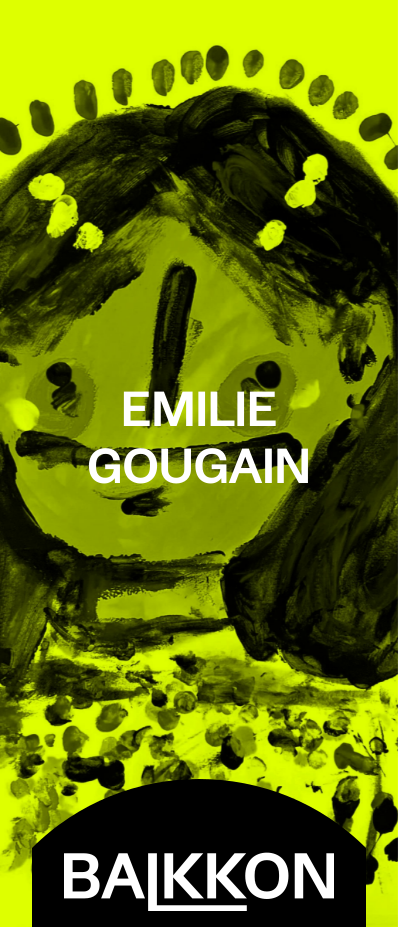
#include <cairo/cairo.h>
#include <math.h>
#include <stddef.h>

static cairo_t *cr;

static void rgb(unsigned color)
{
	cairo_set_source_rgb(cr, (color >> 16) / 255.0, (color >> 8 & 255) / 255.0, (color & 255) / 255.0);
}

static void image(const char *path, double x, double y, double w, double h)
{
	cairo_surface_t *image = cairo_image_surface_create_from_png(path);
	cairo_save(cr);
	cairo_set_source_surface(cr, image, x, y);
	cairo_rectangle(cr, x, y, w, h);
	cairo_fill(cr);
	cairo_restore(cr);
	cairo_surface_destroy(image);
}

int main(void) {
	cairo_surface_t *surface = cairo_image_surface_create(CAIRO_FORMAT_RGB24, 398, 927);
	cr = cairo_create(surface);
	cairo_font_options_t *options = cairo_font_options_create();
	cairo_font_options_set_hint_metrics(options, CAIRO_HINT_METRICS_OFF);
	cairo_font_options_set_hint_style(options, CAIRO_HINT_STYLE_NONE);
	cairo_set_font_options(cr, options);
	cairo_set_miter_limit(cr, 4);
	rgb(0xffffff);
	cairo_paint(cr);
	image("img/1.png", 0, 0, 398, 927);
	rgb(0x000000);
	cairo_rectangle(cr, 32, 856, 334, 71);
	cairo_fill(cr);
	cairo_save(cr);
	cairo_rectangle(cr, 32, 745, 334, 111);
	cairo_clip(cr);
	cairo_set_fill_rule(cr, CAIRO_FILL_RULE_EVEN_ODD);
	cairo_new_path(cr);
	cairo_move_to(cr, 366, 848);
	cairo_curve_to(cr, 274, 756, 124, 756, 32, 848);
	cairo_line_to(cr, 32, 857);
	cairo_line_to(cr, 366, 857);
	cairo_close_path(cr);
	cairo_fill(cr);
	cairo_restore(cr);
	image("img/2.png", 64, 852, 270, 59);
	cairo_select_font_face(cr, "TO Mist", CAIRO_FONT_SLANT_NORMAL, CAIRO_FONT_WEIGHT_BOLD);
	cairo_set_font_size(cr, 47.75);
	rgb(0xffffff);
	cairo_move_to(cr, 121, 426);
	cairo_show_text(cr, "EMILIE");
	cairo_move_to(cr, 87, 483);
	cairo_show_text(cr, "GOUGAIN");
	cairo_surface_write_to_png(surface, "page.png");
	cairo_font_options_destroy(options);
	cairo_destroy(cr);
	cairo_surface_destroy(surface);
	return 0;
}
